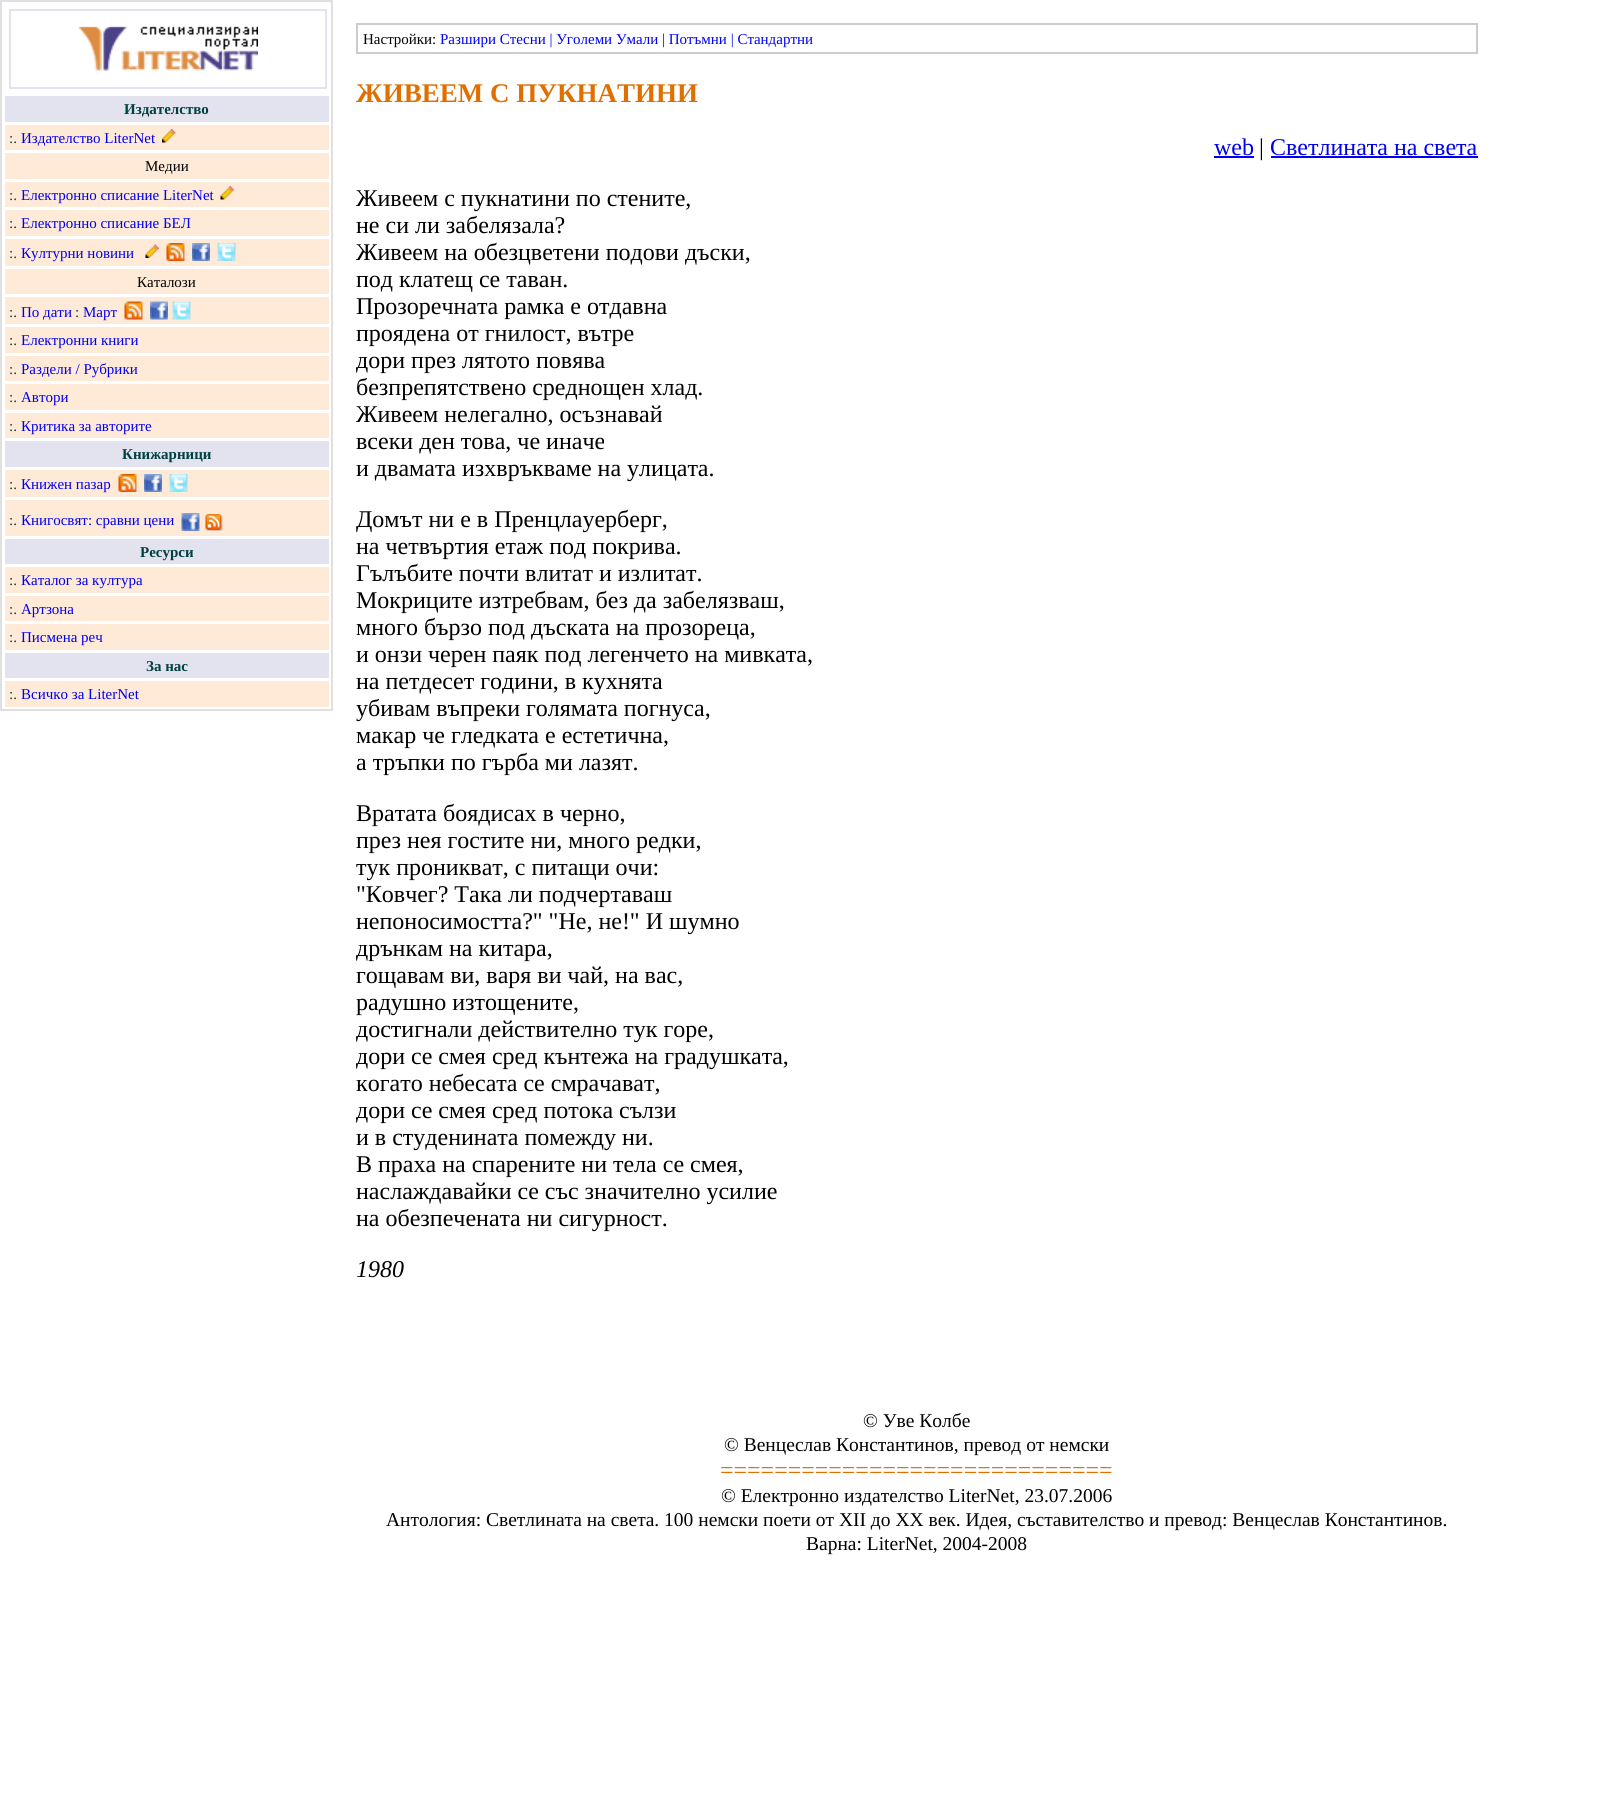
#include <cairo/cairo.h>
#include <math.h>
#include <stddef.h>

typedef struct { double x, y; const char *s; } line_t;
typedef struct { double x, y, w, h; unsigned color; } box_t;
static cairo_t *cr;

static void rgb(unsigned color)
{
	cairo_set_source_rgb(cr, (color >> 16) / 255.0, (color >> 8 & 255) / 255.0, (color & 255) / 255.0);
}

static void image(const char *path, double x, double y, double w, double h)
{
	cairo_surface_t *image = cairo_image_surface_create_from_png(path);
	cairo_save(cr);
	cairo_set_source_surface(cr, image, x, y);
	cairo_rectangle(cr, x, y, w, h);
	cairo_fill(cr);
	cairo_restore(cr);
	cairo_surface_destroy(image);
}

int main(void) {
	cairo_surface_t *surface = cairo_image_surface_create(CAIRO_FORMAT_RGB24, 1616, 1820);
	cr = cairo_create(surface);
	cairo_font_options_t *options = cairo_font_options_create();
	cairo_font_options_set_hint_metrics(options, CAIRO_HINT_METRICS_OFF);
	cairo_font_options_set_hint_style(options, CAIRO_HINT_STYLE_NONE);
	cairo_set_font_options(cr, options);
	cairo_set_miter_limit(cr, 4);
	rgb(0xffffff);
	cairo_paint(cr);
	cairo_rectangle(cr, 1, 1, 331, 709);
	rgb(0xe0e0e0);
	cairo_stroke(cr);
	cairo_rectangle(cr, 10, 10, 316, 78);
	rgb(0xe3e3f0);
	cairo_stroke(cr);
	image("img/1.png", 78, 26, 180, 45);
	cairo_rectangle(cr, 5, 96, 324, 26);
	cairo_fill(cr);
	rgb(0xffead7);
	cairo_rectangle(cr, 5, 125, 324, 25);
	cairo_fill(cr);
	image("img/2.png", 162, 129, 14, 14);
	cairo_rectangle(cr, 5, 153, 324, 26);
	cairo_fill(cr);
	cairo_rectangle(cr, 5, 182, 324, 25);
	cairo_fill(cr);
	image("img/3.png", 220, 186, 14, 14);
	cairo_rectangle(cr, 5, 210, 324, 26);
	cairo_fill(cr);
	cairo_rectangle(cr, 5, 239, 324, 27);
	cairo_fill(cr);
	image("img/4.png", 145, 244, 14, 14);
	image("img/5.png", 166, 243, 19, 18);
	image("img/6.png", 192, 243, 18, 18);
	image("img/7.png", 217, 243, 19, 18);
	cairo_rectangle(cr, 5, 269, 324, 25);
	cairo_fill(cr);
	cairo_rectangle(cr, 5, 297, 324, 27);
	cairo_fill(cr);
	image("img/8.png", 124, 301, 19, 19);
	image("img/9.png", 150, 301, 18, 19);
	image("img/10.png", 172, 301, 19, 19);
	{
		static const box_t items[] = {
			{5, 327, 324, 26, 0xffead7},
			{5, 356, 324, 25, 0xffead7},
			{5, 384, 324, 26, 0xffead7},
			{5, 413, 324, 25, 0xffead7},
			{5, 441, 324, 26, 0xe3e3f0},
			{5, 470, 324, 27, 0xffead7},
		};
		for (size_t i = 0; i < sizeof items / sizeof *items; i++) {
			rgb(items[i].color);
			cairo_rectangle(cr, items[i].x, items[i].y, items[i].w, items[i].h);
			cairo_fill(cr);
		}
	}
	image("img/5.png", 118, 474, 19, 18);
	image("img/6.png", 144, 474, 18, 18);
	image("img/11.png", 169, 474, 19, 18);
	cairo_rectangle(cr, 5, 500, 324, 36);
	cairo_fill(cr);
	image("img/12.png", 181, 513, 19, 18);
	image("img/13.png", 205, 514, 18, 17);
	{
		static const box_t items[] = {
			{5, 539, 324, 25, 0xe3e3f0},
			{5, 567, 324, 26, 0xffead7},
			{5, 596, 324, 25, 0xffead7},
			{5, 624, 324, 26, 0xffead7},
			{5, 653, 324, 25, 0xe3e3f0},
			{5, 681, 324, 26, 0xffead7},
		};
		for (size_t i = 0; i < sizeof items / sizeof *items; i++) {
			rgb(items[i].color);
			cairo_rectangle(cr, items[i].x, items[i].y, items[i].w, items[i].h);
			cairo_fill(cr);
		}
	}
	cairo_rectangle(cr, 357, 24, 1120, 29);
	rgb(0xcccccc);
	cairo_stroke(cr);
	rgb(0x0000ee);
	cairo_rectangle(cr, 1214, 156, 40, 2);
	cairo_fill(cr);
	cairo_rectangle(cr, 1271, 156, 207, 2);
	cairo_fill(cr);
	cairo_select_font_face(cr, "Liberation Serif", CAIRO_FONT_SLANT_NORMAL, CAIRO_FONT_WEIGHT_BOLD);
	cairo_set_font_size(cr, 15);
	rgb(0x004040);
	cairo_move_to(cr, 124, 114);
	cairo_show_text(cr, "Издателство");
	cairo_select_font_face(cr, "Liberation Serif", CAIRO_FONT_SLANT_NORMAL, CAIRO_FONT_WEIGHT_NORMAL);
	cairo_move_to(cr, 9, 143);
	cairo_show_text(cr, ":.");
	rgb(0x0000ee);
	cairo_move_to(cr, 21, 143);
	cairo_show_text(cr, "Издателство LiterNet");
	rgb(0x000000);
	cairo_move_to(cr, 145, 171);
	cairo_show_text(cr, "Медии");
	rgb(0x004040);
	cairo_move_to(cr, 9, 200);
	cairo_show_text(cr, ":.");
	rgb(0x0000ee);
	cairo_move_to(cr, 21, 200);
	cairo_show_text(cr, "Електронно списание LiterNet");
	rgb(0x004040);
	cairo_move_to(cr, 9, 228);
	cairo_show_text(cr, ":.");
	rgb(0x0000ee);
	cairo_move_to(cr, 21, 228);
	cairo_show_text(cr, "Електронно списание БЕЛ");
	rgb(0x004040);
	cairo_move_to(cr, 9, 258);
	cairo_show_text(cr, ":.");
	rgb(0x0000ee);
	cairo_move_to(cr, 21, 258);
	cairo_show_text(cr, "Културни новини");
	rgb(0x000000);
	cairo_move_to(cr, 137, 287);
	cairo_show_text(cr, "Каталози");
	rgb(0x004040);
	cairo_move_to(cr, 9, 317);
	cairo_show_text(cr, ":.");
	rgb(0x0000ee);
	cairo_move_to(cr, 21, 317);
	cairo_show_text(cr, "По дати");
	rgb(0x004040);
	cairo_move_to(cr, 75, 317);
	cairo_show_text(cr, ":");
	rgb(0x0000ee);
	cairo_move_to(cr, 83, 317);
	cairo_show_text(cr, "Март");
	rgb(0x004040);
	cairo_move_to(cr, 9, 345);
	cairo_show_text(cr, ":.");
	rgb(0x0000ee);
	cairo_move_to(cr, 21, 345);
	cairo_show_text(cr, "Електронни книги");
	rgb(0x004040);
	cairo_move_to(cr, 9, 374);
	cairo_show_text(cr, ":.");
	rgb(0x0000ee);
	cairo_move_to(cr, 21, 374);
	cairo_show_text(cr, "Раздели / Рубрики");
	rgb(0x004040);
	cairo_move_to(cr, 9, 402);
	cairo_show_text(cr, ":.");
	rgb(0x0000ee);
	cairo_move_to(cr, 21, 402);
	cairo_show_text(cr, "Автори");
	rgb(0x004040);
	cairo_move_to(cr, 9, 431);
	cairo_show_text(cr, ":.");
	rgb(0x0000ee);
	cairo_move_to(cr, 21, 431);
	cairo_show_text(cr, "Критика за авторите");
	cairo_select_font_face(cr, "Liberation Serif", CAIRO_FONT_SLANT_NORMAL, CAIRO_FONT_WEIGHT_BOLD);
	rgb(0x004040);
	cairo_move_to(cr, 122, 459);
	cairo_show_text(cr, "Книжарници");
	cairo_select_font_face(cr, "Liberation Serif", CAIRO_FONT_SLANT_NORMAL, CAIRO_FONT_WEIGHT_NORMAL);
	cairo_move_to(cr, 9, 489);
	cairo_show_text(cr, ":.");
	rgb(0x0000ee);
	cairo_move_to(cr, 21, 489);
	cairo_show_text(cr, "Книжен пазар");
	rgb(0x004040);
	cairo_move_to(cr, 9, 525);
	cairo_show_text(cr, ":.");
	rgb(0x0000ee);
	cairo_move_to(cr, 21, 525);
	cairo_show_text(cr, "Книгосвят: сравни цени");
	cairo_select_font_face(cr, "Liberation Serif", CAIRO_FONT_SLANT_NORMAL, CAIRO_FONT_WEIGHT_BOLD);
	rgb(0x004040);
	cairo_move_to(cr, 140, 557);
	cairo_show_text(cr, "Ресурси");
	cairo_select_font_face(cr, "Liberation Serif", CAIRO_FONT_SLANT_NORMAL, CAIRO_FONT_WEIGHT_NORMAL);
	cairo_move_to(cr, 9, 585);
	cairo_show_text(cr, ":.");
	rgb(0x0000ee);
	cairo_move_to(cr, 21, 585);
	cairo_show_text(cr, "Каталог за култура");
	rgb(0x004040);
	cairo_move_to(cr, 9, 614);
	cairo_show_text(cr, ":.");
	rgb(0x0000ee);
	cairo_move_to(cr, 21, 614);
	cairo_show_text(cr, "Артзона");
	rgb(0x004040);
	cairo_move_to(cr, 9, 642);
	cairo_show_text(cr, ":.");
	rgb(0x0000ee);
	cairo_move_to(cr, 21, 642);
	cairo_show_text(cr, "Писмена реч");
	cairo_select_font_face(cr, "Liberation Serif", CAIRO_FONT_SLANT_NORMAL, CAIRO_FONT_WEIGHT_BOLD);
	rgb(0x004040);
	cairo_move_to(cr, 146, 671);
	cairo_show_text(cr, "За нас");
	cairo_select_font_face(cr, "Liberation Serif", CAIRO_FONT_SLANT_NORMAL, CAIRO_FONT_WEIGHT_NORMAL);
	cairo_move_to(cr, 9, 699);
	cairo_show_text(cr, ":.");
	rgb(0x0000ee);
	cairo_move_to(cr, 21, 699);
	cairo_show_text(cr, "Всичко за LiterNet");
	rgb(0x000000);
	cairo_move_to(cr, 363, 44);
	cairo_show_text(cr, "Настройки:");
	rgb(0x0000ff);
	cairo_move_to(cr, 440, 44);
	cairo_show_text(cr, "Разшири Стесни | Уголеми Умали | Потъмни | Стандартни");
	cairo_select_font_face(cr, "Liberation Serif", CAIRO_FONT_SLANT_NORMAL, CAIRO_FONT_WEIGHT_BOLD);
	cairo_set_font_size(cr, 27);
	rgb(0xdf7000);
	cairo_move_to(cr, 356, 102);
	cairo_show_text(cr, "ЖИВЕЕМ С ПУКНАТИНИ");
	cairo_select_font_face(cr, "Liberation Serif", CAIRO_FONT_SLANT_NORMAL, CAIRO_FONT_WEIGHT_NORMAL);
	cairo_set_font_size(cr, 24);
	rgb(0x0000ee);
	cairo_move_to(cr, 1214, 155);
	cairo_show_text(cr, "web");
	rgb(0x000000);
	cairo_move_to(cr, 1259, 155);
	cairo_show_text(cr, "|");
	rgb(0x0000ee);
	cairo_move_to(cr, 1270, 155);
	cairo_show_text(cr, "Светлината на света");
	rgb(0x000000);
	{
		static const line_t items[] = {
			{356, 206, "Живеем с пукнатини по стените,"},
			{356, 233, "не си ли забелязала?"},
			{356, 260, "Живеем на обезцветени подови дъски,"},
			{356, 287, "под клатещ се таван."},
			{356, 314, "Прозоречната рамка е отдавна"},
			{356, 341, "проядена от гнилост, вътре"},
			{356, 368, "дори през лятото повява"},
			{356, 395, "безпрепятствено среднощен хлад."},
			{356, 422, "Живеем нелегално, осъзнавай"},
			{356, 449, "всеки ден това, че иначе"},
			{356, 476, "и двамата изхвръкваме на улицата."},
			{356, 527, "Домът ни е в Пренцлауерберг,"},
			{356, 554, "на четвъртия етаж под покрива."},
			{356, 581, "Гълъбите почти влитат и излитат."},
			{356, 608, "Мокриците изтребвам, без да забелязваш,"},
			{356, 635, "много бързо под дъската на прозореца,"},
			{356, 662, "и онзи черен паяк под легенчето на мивката,"},
			{356, 689, "на петдесет години, в кухнята"},
			{356, 716, "убивам въпреки голямата погнуса,"},
			{356, 743, "макар че гледката е естетична,"},
			{356, 770, "а тръпки по гърба ми лазят."},
			{356, 821, "Вратата боядисах в черно,"},
			{356, 848, "през нея гостите ни, много редки,"},
			{356, 875, "тук проникват, с питащи очи:"},
			{356, 902, "\"Ковчег? Така ли подчертаваш"},
			{356, 929, "непоносимостта?\" \"Не, не!\" И шумно"},
			{356, 956, "дрънкам на китара,"},
			{356, 983, "гощавам ви, варя ви чай, на вас,"},
			{356, 1010, "радушно изтощените,"},
			{356, 1037, "достигнали действително тук горе,"},
			{356, 1064, "дори се смея сред кънтежа на градушката,"},
			{356, 1091, "когато небесата се смрачават,"},
			{356, 1118, "дори се смея сред потока сълзи"},
			{356, 1145, "и в студенината помежду ни."},
			{356, 1172, "В праха на спарените ни тела се смея,"},
			{356, 1199, "наслаждавайки се със значително усилие"},
			{356, 1226, "на обезпечената ни сигурност."},
		};
		for (size_t i = 0; i < sizeof items / sizeof *items; i++) {
			cairo_move_to(cr, items[i].x, items[i].y);
			cairo_show_text(cr, items[i].s);
		}
	}
	cairo_select_font_face(cr, "Liberation Serif", CAIRO_FONT_SLANT_ITALIC, CAIRO_FONT_WEIGHT_NORMAL);
	cairo_move_to(cr, 356, 1277);
	cairo_show_text(cr, "1980");
	cairo_select_font_face(cr, "Liberation Serif", CAIRO_FONT_SLANT_NORMAL, CAIRO_FONT_WEIGHT_NORMAL);
	cairo_set_font_size(cr, 19.5);
	cairo_move_to(cr, 863, 1427);
	cairo_show_text(cr, "© Уве Колбе");
	cairo_move_to(cr, 724, 1451);
	cairo_show_text(cr, "© Венцеслав Константинов, превод от немски");
	cairo_set_font_size(cr, 24);
	rgb(0xdf7000);
	cairo_move_to(cr, 720, 1478);
	cairo_show_text(cr, "=============================");
	cairo_set_font_size(cr, 19.5);
	rgb(0x000000);
	{
		static const line_t items[] = {
			{721, 1502, "© Електронно издателство LiterNet, 23.07.2006"},
			{386, 1526, "Антология: Светлината на света. 100 немски поети от XII до XX век. Идея, съставителство и превод: Венцеслав Константинов."},
			{806, 1550, "Варна: LiterNet, 2004-2008"},
		};
		for (size_t i = 0; i < sizeof items / sizeof *items; i++) {
			cairo_move_to(cr, items[i].x, items[i].y);
			cairo_show_text(cr, items[i].s);
		}
	}
	cairo_surface_write_to_png(surface, "page.png");
	cairo_font_options_destroy(options);
	cairo_destroy(cr);
	cairo_surface_destroy(surface);
	return 0;
}
